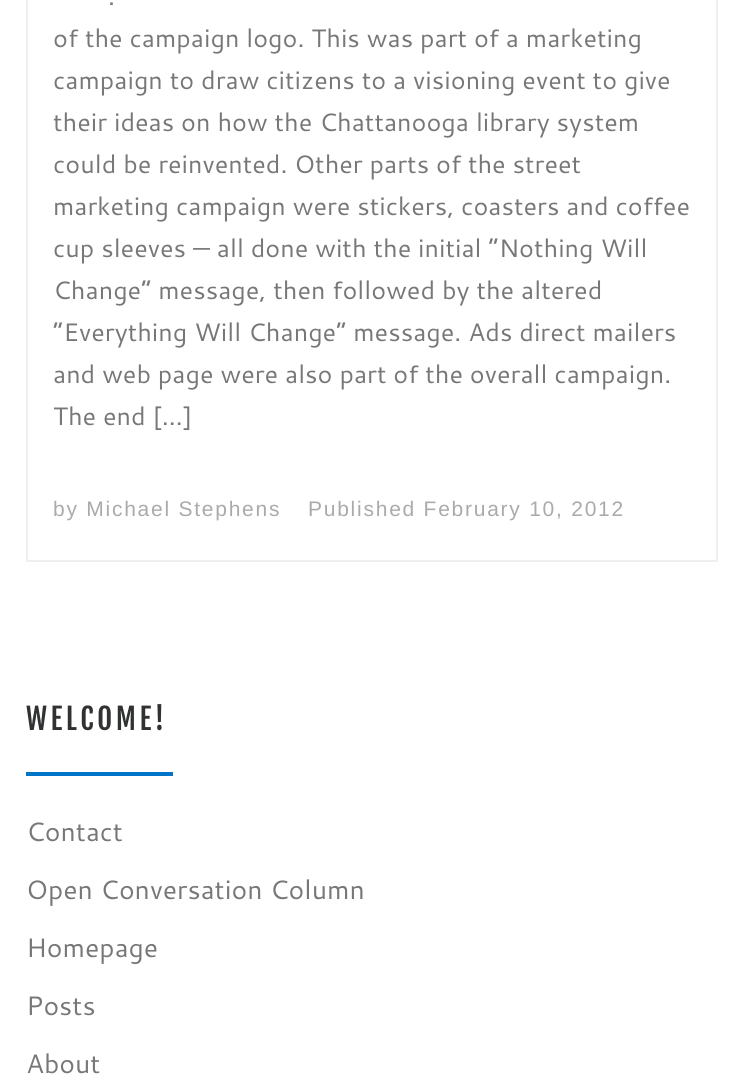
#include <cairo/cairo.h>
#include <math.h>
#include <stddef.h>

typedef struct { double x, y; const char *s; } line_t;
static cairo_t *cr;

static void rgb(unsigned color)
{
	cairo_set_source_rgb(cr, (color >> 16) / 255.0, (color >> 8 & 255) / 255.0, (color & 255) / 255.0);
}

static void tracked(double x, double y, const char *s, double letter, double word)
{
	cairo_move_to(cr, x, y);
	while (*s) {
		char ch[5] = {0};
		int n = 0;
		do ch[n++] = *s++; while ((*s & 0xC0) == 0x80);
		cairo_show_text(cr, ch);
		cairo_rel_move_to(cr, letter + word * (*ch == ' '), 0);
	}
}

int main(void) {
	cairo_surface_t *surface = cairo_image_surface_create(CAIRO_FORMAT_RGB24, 743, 1078);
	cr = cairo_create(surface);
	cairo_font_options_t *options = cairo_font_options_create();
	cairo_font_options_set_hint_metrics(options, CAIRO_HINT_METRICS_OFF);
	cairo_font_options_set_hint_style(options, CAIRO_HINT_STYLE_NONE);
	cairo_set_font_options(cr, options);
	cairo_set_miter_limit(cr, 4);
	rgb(0xffffff);
	cairo_paint(cr);
	cairo_rectangle(cr, 27, -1, 690, 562);
	rgb(0xefefef);
	cairo_stroke(cr);
	rgb(0x0074c6);
	cairo_rectangle(cr, 26, 772, 147, 4);
	cairo_fill(cr);
	cairo_select_font_face(cr, "Cantarell", CAIRO_FONT_SLANT_NORMAL, CAIRO_FONT_WEIGHT_NORMAL);
	cairo_set_font_size(cr, 25.2);
	rgb(0x777777);
	{
		static const line_t items[] = {
			{108, 5, "."},
			{53, 47, "of the campaign logo. This was part of a marketing"},
			{53, 89, "campaign to draw citizens to a visioning event to give"},
			{53, 131, "their ideas on how the Chattanooga library system"},
			{53, 173, "could be reinvented. Other parts of the street"},
			{53, 215, "marketing campaign were stickers, coasters and coffee"},
			{53, 257, "cup sleeves — all done with the initial “Nothing Will"},
			{53, 299, "Change” message, then followed by the altered"},
			{53, 341, "“Everything Will Change” message. Ads direct mailers"},
			{53, 383, "and web page were also part of the overall campaign."},
			{53, 425, "The end […]"},
		};
		for (size_t i = 0; i < sizeof items / sizeof *items; i++) {
			cairo_move_to(cr, items[i].x, items[i].y);
			cairo_show_text(cr, items[i].s);
		}
	}
	cairo_select_font_face(cr, "Liberation Sans", CAIRO_FONT_SLANT_NORMAL, CAIRO_FONT_WEIGHT_NORMAL);
	cairo_set_font_size(cr, 21);
	rgb(0xaaaaaa);
	tracked(53, 516, "by Michael Stephens", 1.75, 0);
	tracked(308, 516, "Published February 10, 2012", 1.75, 0);
	cairo_select_font_face(cr, "Fjalla One", CAIRO_FONT_SLANT_NORMAL, CAIRO_FONT_WEIGHT_NORMAL);
	cairo_set_font_size(cr, 29.25);
	rgb(0x303133);
	tracked(26, 730, "WELCOME!", 3.5, 0);
	cairo_select_font_face(cr, "Cantarell", CAIRO_FONT_SLANT_NORMAL, CAIRO_FONT_WEIGHT_NORMAL);
	cairo_set_font_size(cr, 26.6);
	rgb(0x777777);
	{
		static const line_t items[] = {
			{26, 841, "Contact"},
			{26, 899, "Open Conversation Column"},
			{26, 957, "Homepage"},
			{26, 1015, "Posts"},
			{26, 1073, "About"},
		};
		for (size_t i = 0; i < sizeof items / sizeof *items; i++) {
			cairo_move_to(cr, items[i].x, items[i].y);
			cairo_show_text(cr, items[i].s);
		}
	}
	cairo_surface_write_to_png(surface, "page.png");
	cairo_font_options_destroy(options);
	cairo_destroy(cr);
	cairo_surface_destroy(surface);
	return 0;
}
